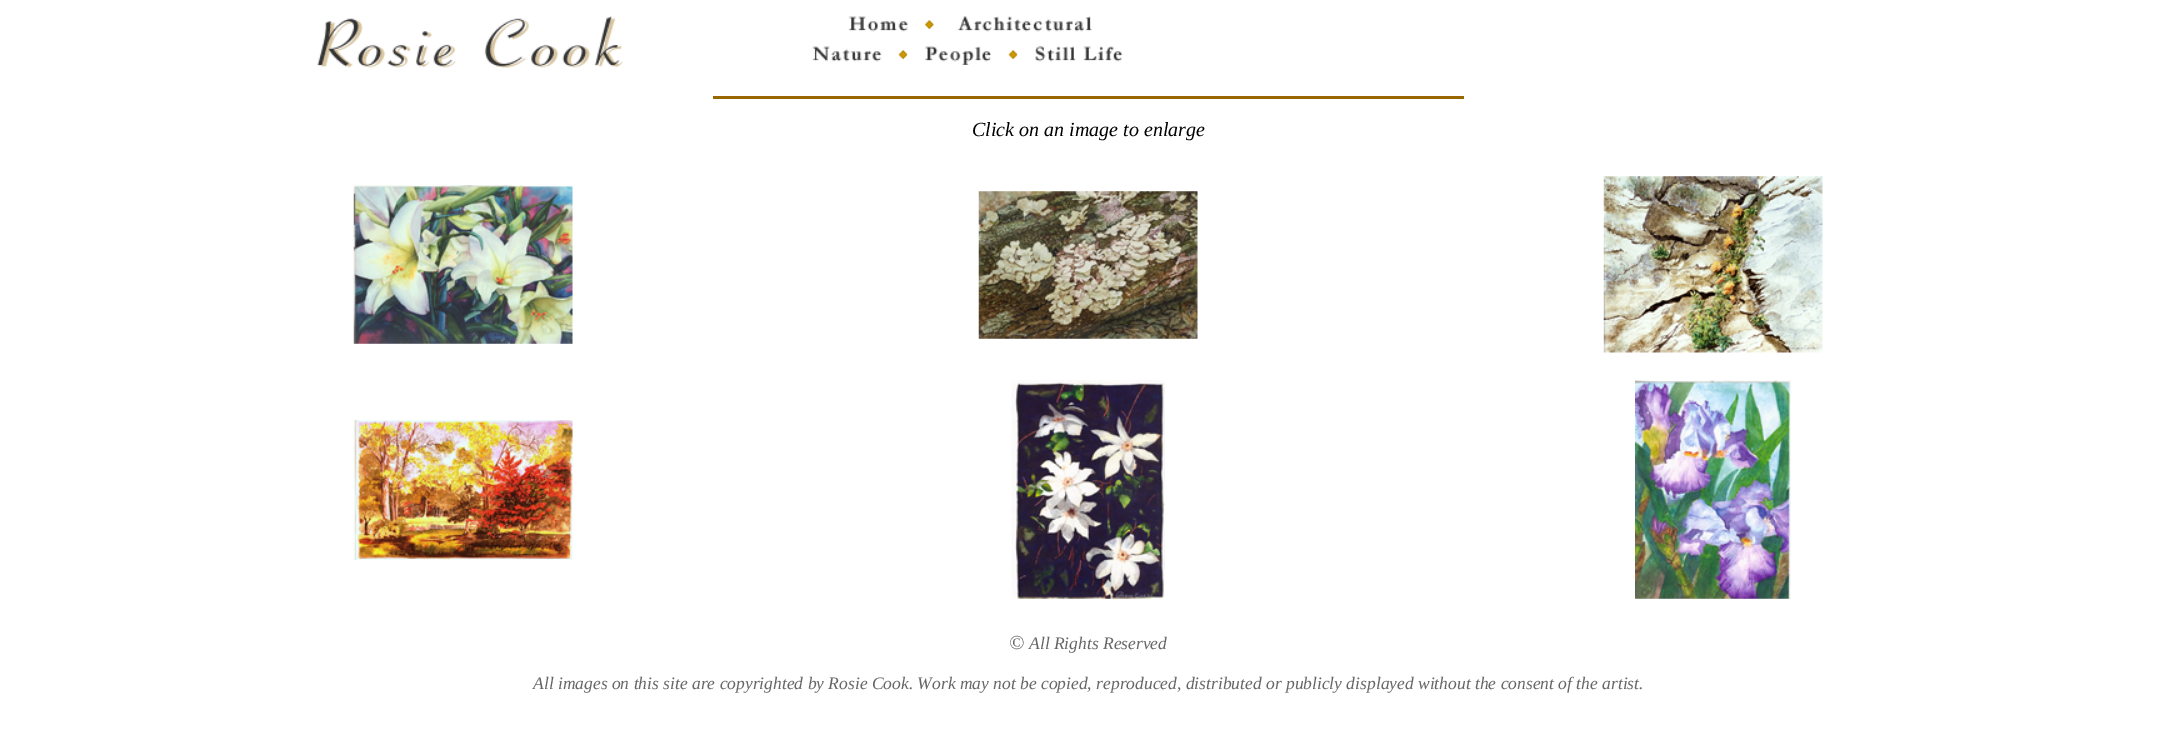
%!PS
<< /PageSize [2176 739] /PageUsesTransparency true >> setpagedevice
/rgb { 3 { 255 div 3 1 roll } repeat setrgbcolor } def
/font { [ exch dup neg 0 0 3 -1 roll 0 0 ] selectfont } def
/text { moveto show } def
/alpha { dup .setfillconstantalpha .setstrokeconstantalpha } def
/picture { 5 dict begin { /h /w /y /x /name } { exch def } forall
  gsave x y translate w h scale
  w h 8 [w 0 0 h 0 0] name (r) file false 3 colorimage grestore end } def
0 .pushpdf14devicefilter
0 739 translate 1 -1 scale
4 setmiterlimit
255 255 255 rgb
0 0 2176 739 rectfill
(img_01.rgb) 317 16 306 52 picture
(img_02.rgb) 848 16 60 16 picture
(img_03.rgb) 925 20 9 10 picture
(img_04.rgb) 957 16 135 16 picture
0.25 alpha
933 23 1 3 rectfill
1 alpha
(img_05.rgb) 812 46 70 16 picture
(img_06.rgb) 898 50 10 10 picture
(img_07.rgb) 925 46 67 19 picture
(img_06.rgb) 1008 50 10 10 picture
(img_08.rgb) 1035 46 88 16 picture
0.5 alpha
907 53 1 3 rectfill
1017 53 1 3 rectfill
1 alpha
153 102 0 rgb
713 96 751 3 rectfill
(img_09.rgb) 353 185 220 159 picture
(img_10.rgb) 978 191 220 148 picture
(img_11.rgb) 1603 176 220 177 picture
(img_12.rgb) 353 420 220 140 picture
(img_13.rgb) 1011 380 154 219 picture
(img_14.rgb) 1635 380 156 219 picture
/LiberationSerif-Italic 20 font
0 0 0 rgb
(Click on an image to enlarge) 972 136 text
102 102 102 rgb
(©) 1009 649 text
/LiberationSerif-Italic 17.5 font
(All Rights Reserved) 1029 649 text
(All images on this site are copyrighted by Rosie Cook. Work may not be copied, reproduced, distributed or publicly displayed without the consent of the artist.) 533 689 text
.poppdf14devicefilter showpage
